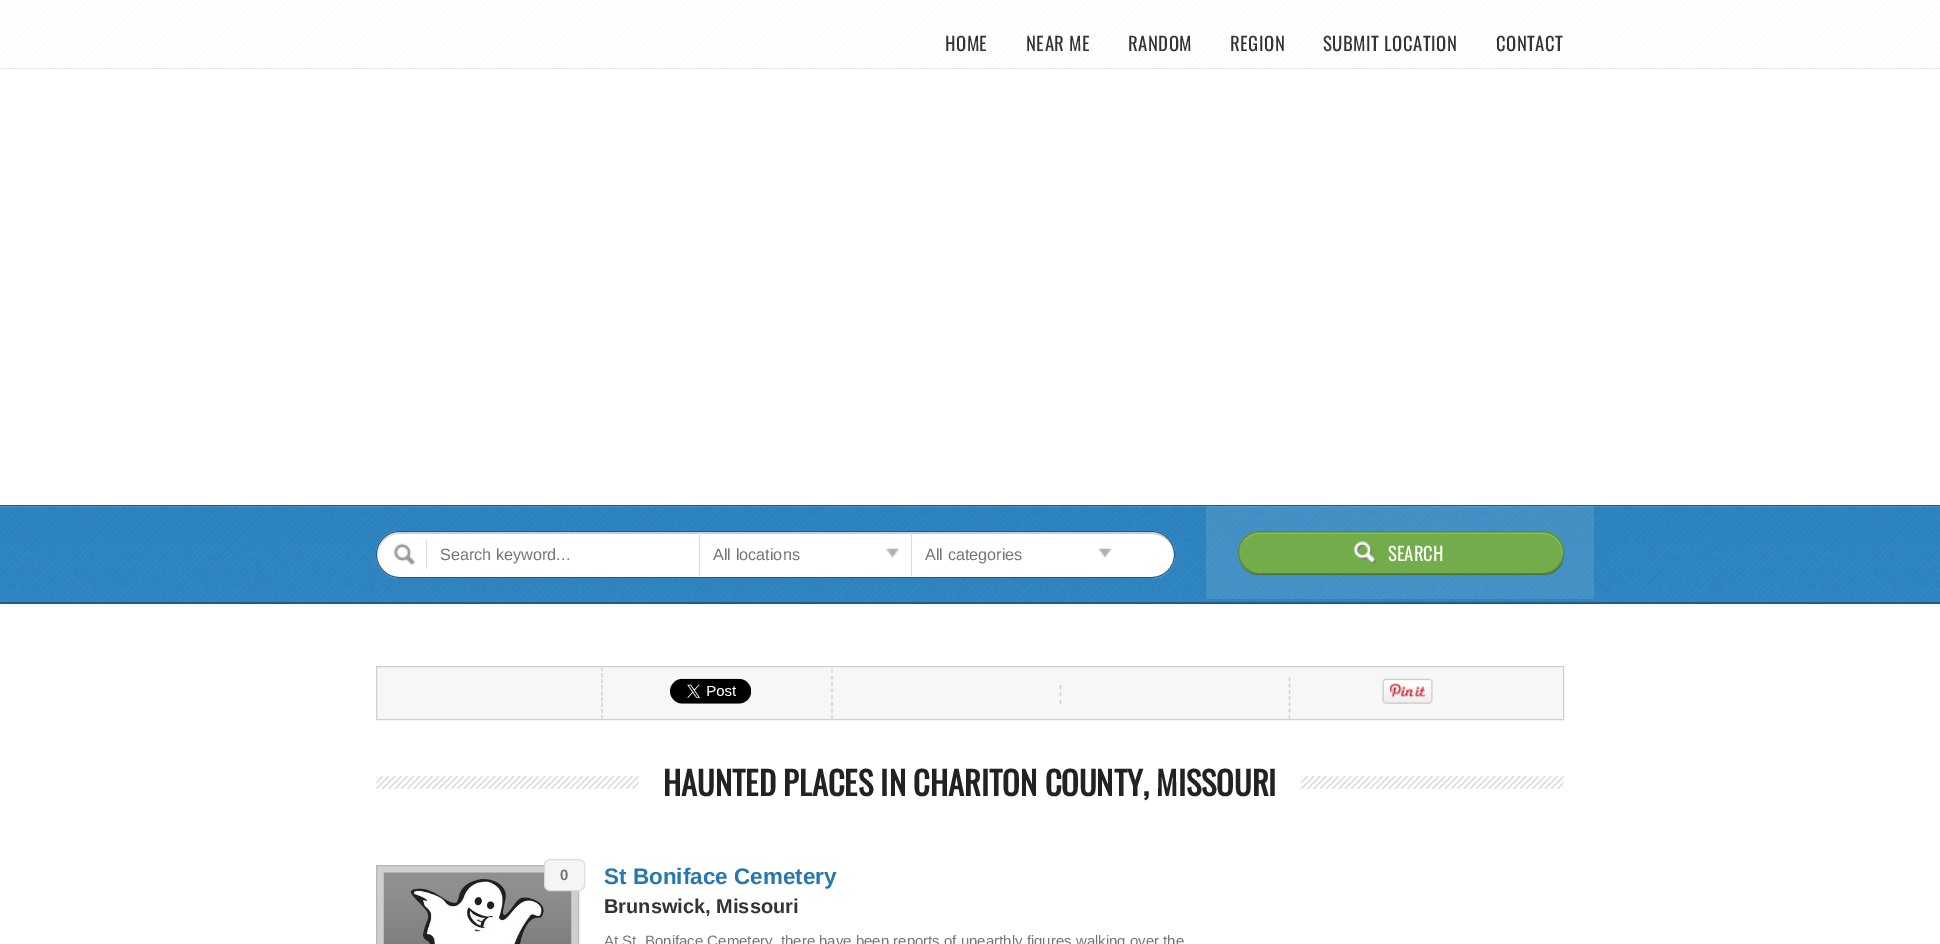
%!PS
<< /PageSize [1940 944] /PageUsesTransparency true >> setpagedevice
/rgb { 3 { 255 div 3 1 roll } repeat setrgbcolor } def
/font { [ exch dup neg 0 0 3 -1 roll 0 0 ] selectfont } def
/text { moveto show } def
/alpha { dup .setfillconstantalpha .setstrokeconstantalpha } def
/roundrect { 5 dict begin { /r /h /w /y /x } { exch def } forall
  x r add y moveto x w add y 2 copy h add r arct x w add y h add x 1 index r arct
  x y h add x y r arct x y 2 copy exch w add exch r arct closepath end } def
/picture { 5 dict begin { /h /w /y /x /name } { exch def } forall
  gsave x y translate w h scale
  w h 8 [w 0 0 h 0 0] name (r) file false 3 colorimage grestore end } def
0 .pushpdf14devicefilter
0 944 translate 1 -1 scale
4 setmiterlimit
255 255 255 rgb
0 0 1940 944 rectfill
230 230 230 rgb
0 68 1940 1 rectfill
(img_01.rgb) 0 0 1940 66 picture
48 142 207 rgb
0 506 1940 97 rectfill
(img_02.rgb) 0 506 1940 97 picture
gsave
0 506 1940 97 rectclip
0.3 alpha
0 0 0 rgb
-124 382 moveto 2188 0 rlineto 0 344 rlineto -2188 0 rlineto closepath 0 481 moveto 1940 0 rlineto 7 0 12 6 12 13 rcurveto 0 96 rlineto 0 7 -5 12 -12 12 rcurveto -1940 0 rlineto -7 0 -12 -5 -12 -12 rcurveto 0 -96 rlineto 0 -7 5 -13 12 -13 rcurveto closepath eofill
grestore
0.1 alpha
255 255 255 rgb
0 506 1940 1 rectfill
1 alpha
10 92 147 rgb
0 505 1940 1 rectfill
30 91 133 rgb
0 603 1940 1 rectfill
56 146 209 rgb
382 570 moveto 4 5 11 9 18 9 rcurveto 752 0 rlineto 10 0 18 -6 21 -15 rcurveto -4 8 -12 14 -21 14 rcurveto -753 0 rlineto -7 0 -13 -4 -17 -8 rcurveto closepath fill
255 255 255 rgb
376 531 799 47 23.5 roundrect fill
204 204 204 rgb
399 534 moveto 753 0 rlineto 12 0 22 10 22 21 rcurveto 0 -12 -9 -22 -22 -22 rcurveto -752 0 rlineto -13 0 -22 10 -22 22 rcurveto 0 -11 9 -21 21 -21 rcurveto closepath fill
30 91 133 rgb
376.5 531.5 798 46 23 roundrect stroke
220 220 220 rgb
426 540 1 29 rectfill
(img_03.rgb) 393 543 22 22 picture
(img_04.rgb) 886 548 13 10 picture
699 533 1 43 rectfill
(img_05.rgb) 1098 548 14 10 picture
911 533 1 43 rectfill
0.1 alpha
255 255 255 rgb
1206 506 388 93 rectfill
1 alpha
70 105 46 rgb
1239 560 moveto 3 9 11 15 20 15 rcurveto 284 0 rlineto 12 0 21 -9 21 -21 rcurveto 0 -4 rlineto 0 2 rlineto 0 12 -10 22 -22 22 rcurveto -283 0 rlineto -9 0 -17 -6 -20 -14 rcurveto closepath fill
115 172 75 rgb
1238 531 326 43 21.5 roundrect fill
(img_06.rgb) 1353 541 24 23 picture
136 188 100 rgb
1259 534 moveto 283 0 rlineto 12 0 20 9 20 20 rcurveto 0 4 -1 8 -3 11 rcurveto 2 -3 4 -7 4 -12 rcurveto 0 -11 -9 -20 -20 -20 rcurveto -284 0 rlineto -11 0 -20 9 -20 20 rcurveto 0 1 rlineto 0 -11 9 -20 20 -20 rcurveto closepath fill
91 136 60 rgb
1238.5 531.5 325 42 21 roundrect stroke
247 247 247 rgb
376.5 666.5 moveto 1187 0 rlineto 0 53 rlineto -1187 0 rlineto closepath gsave fill grestore
207 207 207 rgb
stroke
1.2 setlinewidth
[3.75 2.19] 0 setdash
602 667.5 moveto 0 51.5 rlineto stroke
[3.75 2.86] 0 setdash
832 669 moveto 0 50 rlineto stroke
(img_07.rgb) 670 678 82 26 picture
[] 0 setdash
1060.5 685 moveto 0 4 rlineto 1060.5 692.5 moveto 0 3.5 rlineto 1060.5 700 moveto 0 4 rlineto stroke
[3.75 2.5] 0 setdash
1289.5 677.5 moveto 0 41.5 rlineto stroke
(img_08.rgb) 1382 678 51 26 picture
(img_09.rgb) 376 776 1188 13 picture
255 255 255 rgb
639 776 662 13 rectfill
207 207 207 rgb
376.5 865.5 moveto 202 0 rlineto 0 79 rlineto -202 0 rlineto closepath gsave fill grestore
182 182 182 rgb
1 setlinewidth
[] 0 setdash
stroke
(img_10.rgb) 383 872 189 72 picture
245 245 245 rgb
544.5 859.5 40 31 5.5 roundrect gsave fill grestore
220 220 220 rgb
stroke
/Oswald-Regular 18.75 font
51 51 51 rgb
945 51 moveto 0.5 0 (HOME) ashow
1026 51 moveto 0.5 0 (NEAR ME) ashow
1128 51 moveto 0.5 0 (RANDOM) ashow
1230 51 moveto 0.5 0 (REGION) ashow
1323 51 moveto 0.5 0 (SUBMIT LOCATION) ashow
1496 51 moveto 0.5 0 (CONTACT) ashow
/LiberationSans-Regular 16.25 font
117 117 117 rgb
(Search keyword...) 440 560 text
(All locations) 713 560 text
(All categories) 925 560 text
/Oswald-Regular 18.75 font
255 255 255 rgb
(SEARCH) 1388 561 text
/Oswald-Bold 32.5 font
34 34 34 rgb
(HAUNTED PLACES IN CHARITON COUNTY, MISSOURI) 663 796 text
/LiberationSans-Bold 15 font
117 117 117 rgb
(0) 560 880 text
/LiberationSans-Bold 22.5 font
40 119 174 rgb
(St Boniface Cemetery) 604 884 text
/LiberationSans-Bold 20 font
51 51 51 rgb
(Brunswick, Missouri) 604 913 text
/LiberationSans-Regular 15 font
117 117 117 rgb
(At St. Boniface Cemetery, there have been reports of unearthly figures walking over the) 604 946 text
.poppdf14devicefilter showpage
